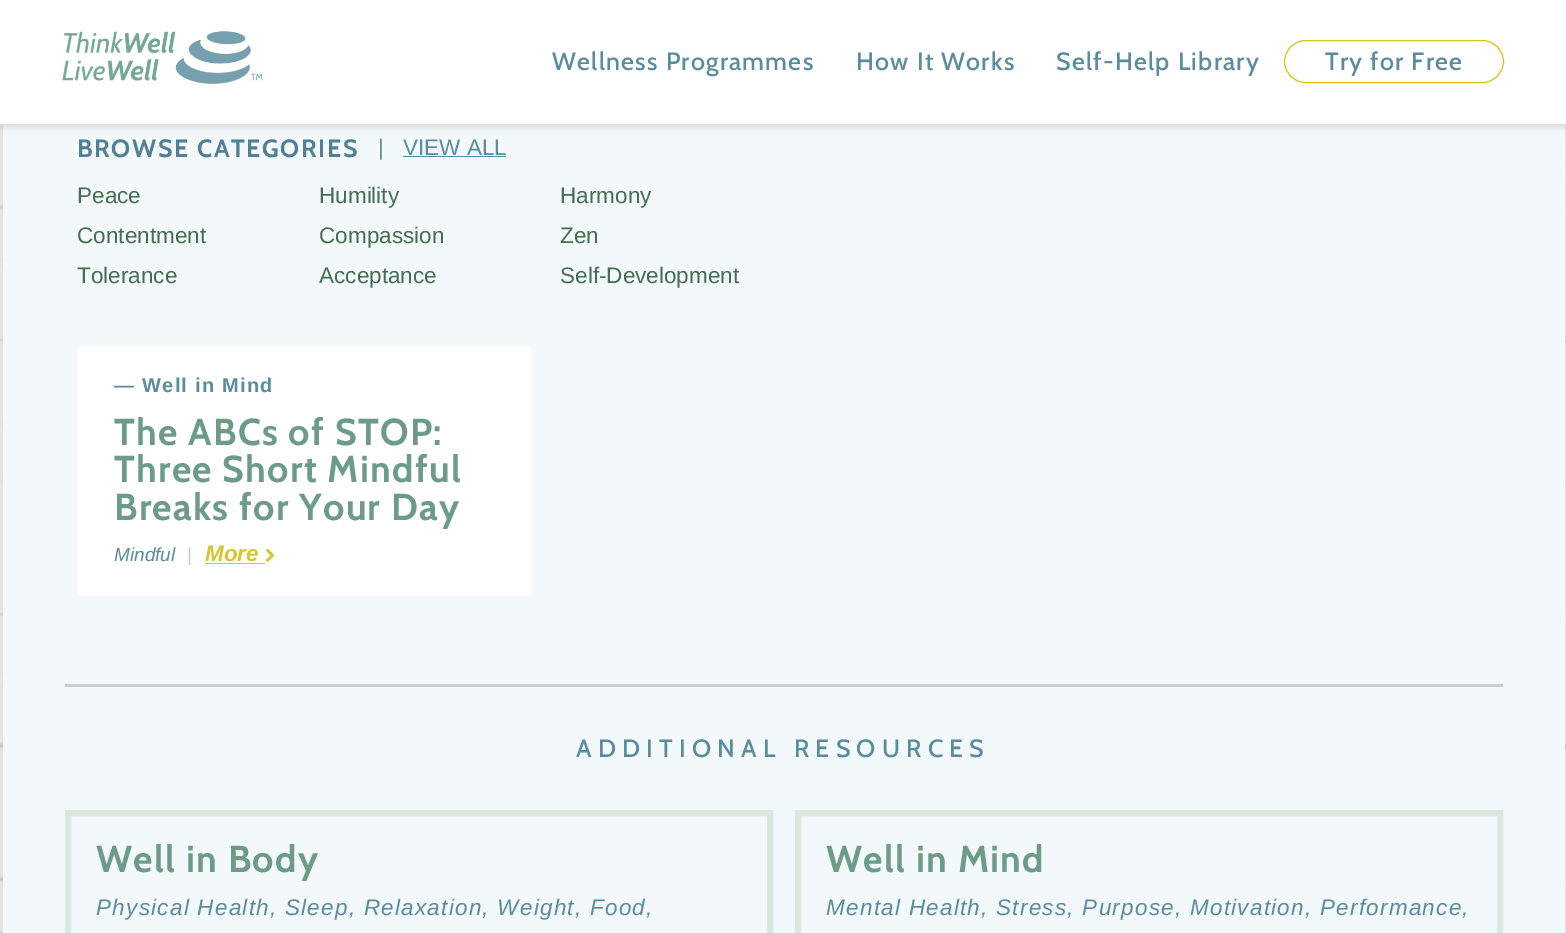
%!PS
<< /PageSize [1566 933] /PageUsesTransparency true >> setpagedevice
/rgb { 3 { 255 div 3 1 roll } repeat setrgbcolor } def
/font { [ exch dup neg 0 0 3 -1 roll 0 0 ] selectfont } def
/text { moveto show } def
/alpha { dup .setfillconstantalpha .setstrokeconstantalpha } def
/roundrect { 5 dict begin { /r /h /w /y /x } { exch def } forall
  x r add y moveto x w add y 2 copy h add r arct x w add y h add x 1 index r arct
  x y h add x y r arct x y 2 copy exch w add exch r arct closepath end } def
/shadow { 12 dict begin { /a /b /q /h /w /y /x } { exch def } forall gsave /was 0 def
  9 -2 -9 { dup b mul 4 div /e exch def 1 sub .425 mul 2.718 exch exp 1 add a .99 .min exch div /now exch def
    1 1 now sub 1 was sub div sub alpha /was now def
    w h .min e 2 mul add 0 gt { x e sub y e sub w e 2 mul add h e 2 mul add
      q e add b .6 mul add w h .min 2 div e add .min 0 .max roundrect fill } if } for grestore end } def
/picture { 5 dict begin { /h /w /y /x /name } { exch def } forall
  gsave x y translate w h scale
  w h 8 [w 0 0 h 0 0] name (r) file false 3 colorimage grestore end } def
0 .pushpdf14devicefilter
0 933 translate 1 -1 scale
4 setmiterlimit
255 255 255 rgb
0 0 1566 933 rectfill
(img_01.rgb) 0 124 1566 809 picture
0 0 0 rgb
-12 -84 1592 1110 0 31 0.15 shadow
243 248 250 rgb
3 124 1562 809 rectfill
(img_04.rgb) 1565 137 1 44 picture
0 0 0 rgb
0 4 1566 124 0 3 0.1 shadow
255 255 255 rgb
0 0 1566 124 rectfill
(img_02.rgb) 62 31 201 53 picture
218 196 18 rgb
1284.5 40.5 219 42 21 roundrect stroke
89 140 159 rgb
403 156 103 1 rectfill
255 255 255 rgb
78 346 453 250 5 roundrect fill
215 197 49 rgb
205 563 60 1 rectfill
(img_03.rgb) 265 548 10 15 picture
204 204 204 rgb
65 684 1438 3 rectfill
219 231 222 rgb
6 setlinewidth
68 813 702 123 rectstroke
798 813 702 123 rectstroke
/Cabin-Medium 25 font
89 140 159 rgb
552 70 moveto 1.25 0 (Wellness Programmes) ashow
856 70 moveto 1.25 0 (How It Works) ashow
1056 70 moveto 1.25 0 (Self-Help Library) ashow
1325 70 moveto 1.25 0 (Try for Free) ashow
/Cabin-Bold 25 font
81 128 149 rgb
77 157 moveto 1.6 0 (BROWSE CATEGORIES) ashow
/LiberationSans-Regular 22.5 font
89 140 159 rgb
(|) 378 155 text
(VIEW ALL) 403 155 text
70 110 81 rgb
(Peace) 77 203 text
(Contentment) 77 243 text
(Tolerance) 77 283 text
(Humility) 319 203 text
(Compassion) 319 243 text
(Acceptance) 319 283 text
(Harmony) 560 203 text
(Zen) 560 243 text
(Self-Development) 560 283 text
/LiberationSans-Bold 20 font
89 140 159 rgb
114 392 moveto 1.25 0 (— Well in Mind) ashow
/Cabin-Bold 37.5 font
108 155 135 rgb
114 445 moveto 1.25 0 (The ABCs of STOP:) ashow
114 482 moveto 1.25 0 (Three Short Mindful) ashow
114 520 moveto 1.25 0 (Breaks for Your Day) ashow
/LiberationSans-Italic 19 font
89 140 159 rgb
(Mindful) 114 561 text
/LiberationSans-Regular 19 font
204 204 204 rgb
(|) 187 561 text
/LiberationSans-BoldItalic 22.5 font
215 197 49 rgb
(More) 205 561 text
/Cabin-Medium 25 font
89 140 159 rgb
576 757 moveto 6.25 0 (ADDITIONAL RESOURCES) ashow
/Cabin-Bold 37.5 font
108 155 135 rgb
96 872 moveto 1.25 0 (Well in Body) ashow
/LiberationSans-Italic 22.5 font
89 140 159 rgb
96 915 moveto 1.25 0 (Physical Health, Sleep, Relaxation, Weight, Food,) ashow
/Cabin-Bold 37.5 font
108 155 135 rgb
826 872 moveto 1.25 0 (Well in Mind) ashow
/LiberationSans-Italic 22.5 font
89 140 159 rgb
826 915 moveto 1.25 0 (Mental Health, Stress, Purpose, Motivation, Performance,) ashow
.poppdf14devicefilter showpage
